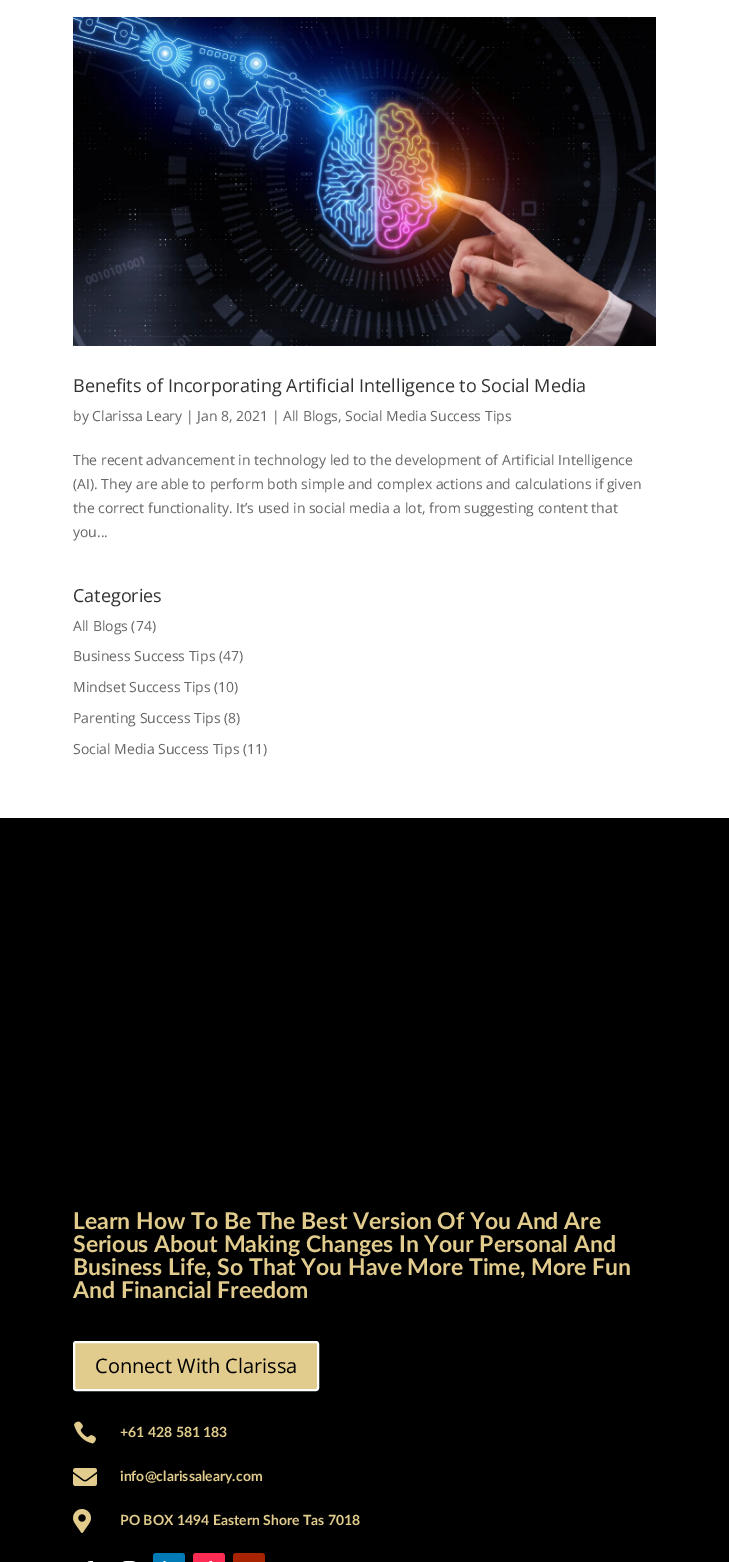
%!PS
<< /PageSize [729 1562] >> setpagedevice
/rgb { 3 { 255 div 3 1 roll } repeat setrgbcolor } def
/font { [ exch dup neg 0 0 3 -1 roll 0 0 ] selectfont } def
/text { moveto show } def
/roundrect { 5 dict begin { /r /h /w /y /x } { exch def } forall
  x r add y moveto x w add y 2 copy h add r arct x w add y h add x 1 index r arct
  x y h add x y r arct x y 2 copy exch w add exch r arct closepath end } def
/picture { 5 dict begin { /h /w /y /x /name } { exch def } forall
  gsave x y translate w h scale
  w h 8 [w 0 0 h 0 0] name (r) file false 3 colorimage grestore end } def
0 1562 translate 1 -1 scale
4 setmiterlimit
255 255 255 rgb
0 0 729 1562 rectfill
(img_01.rgb) 73 17 583 329 picture
0 0 0 rgb
0 818 729 744 rectfill
225 203 141 rgb
74 1342 244 48 2 roundrect gsave fill grestore
255 255 255 rgb
2 setlinewidth
stroke
(img_02.rgb) 74 1421 22 23 picture
(img_03.rgb) 73 1468 24 18 picture
(img_04.rgb) 73 1509 18 24 picture
(img_05.rgb) 87 1561 6 1 picture
(img_06.rgb) 122 1561 14 1 picture
0 123 182 rgb
153 1553 32 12 3 roundrect fill
(img_07.rgb) 163 1561 3 1 picture
254 44 85 rgb
193 1553 32 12 3 roundrect fill
(img_08.rgb) 209 1561 4 1 picture
168 36 0 rgb
233 1553 32 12 3 roundrect fill
/OpenSans-Regular 18 font
51 51 51 rgb
(Benefits of Incorporating Artificial Intelligence to Social Media) 73 392 text
/OpenSans-Regular 14 font
102 102 102 rgb
(by Clarissa Leary | Jan 8, 2021 | All Blogs, Social Media Success Tips) 73 421 text
(The recent advancement in technology led to the development of Artificial Intelligence) 73 465 text
(\(AI\). They are able to perform both simple and complex actions and calculations if given) 73 489 text
(the correct functionality. It’s used in social media a lot, from suggesting content that) 73 513 text
(you...) 73 537 text
/OpenSans-Regular 18 font
51 51 51 rgb
(Categories) 73 602 text
/OpenSans-Regular 14 font
102 102 102 rgb
(All Blogs \(74\)) 73 631 text
(Business Success Tips \(47\)) 73 661 text
(Mindset Success Tips \(10\)) 73 692 text
(Parenting Success Tips \(8\)) 73 723 text
(Social Media Success Tips \(11\)) 73 754 text
/Lato-Bold 23 font
225 203 141 rgb
(Learn How To Be The Best Version Of You And Are) 73 1229 text
(Serious About Making Changes In Your Personal And) 73 1252 text
(Business Life, So That You Have More Time, More Fun) 73 1275 text
(And Financial Freedom) 73 1298 text
/OpenSans-Regular 20 font
0 0 0 rgb
(Connect With Clarissa) 95 1373 text
/Lato-Bold 14 font
225 203 141 rgb
(+61 428 581 183) 120 1437 text
(info@clarissaleary.com) 120 1481 text
(PO BOX 1494 Eastern Shore Tas 7018) 120 1525 text
showpage
